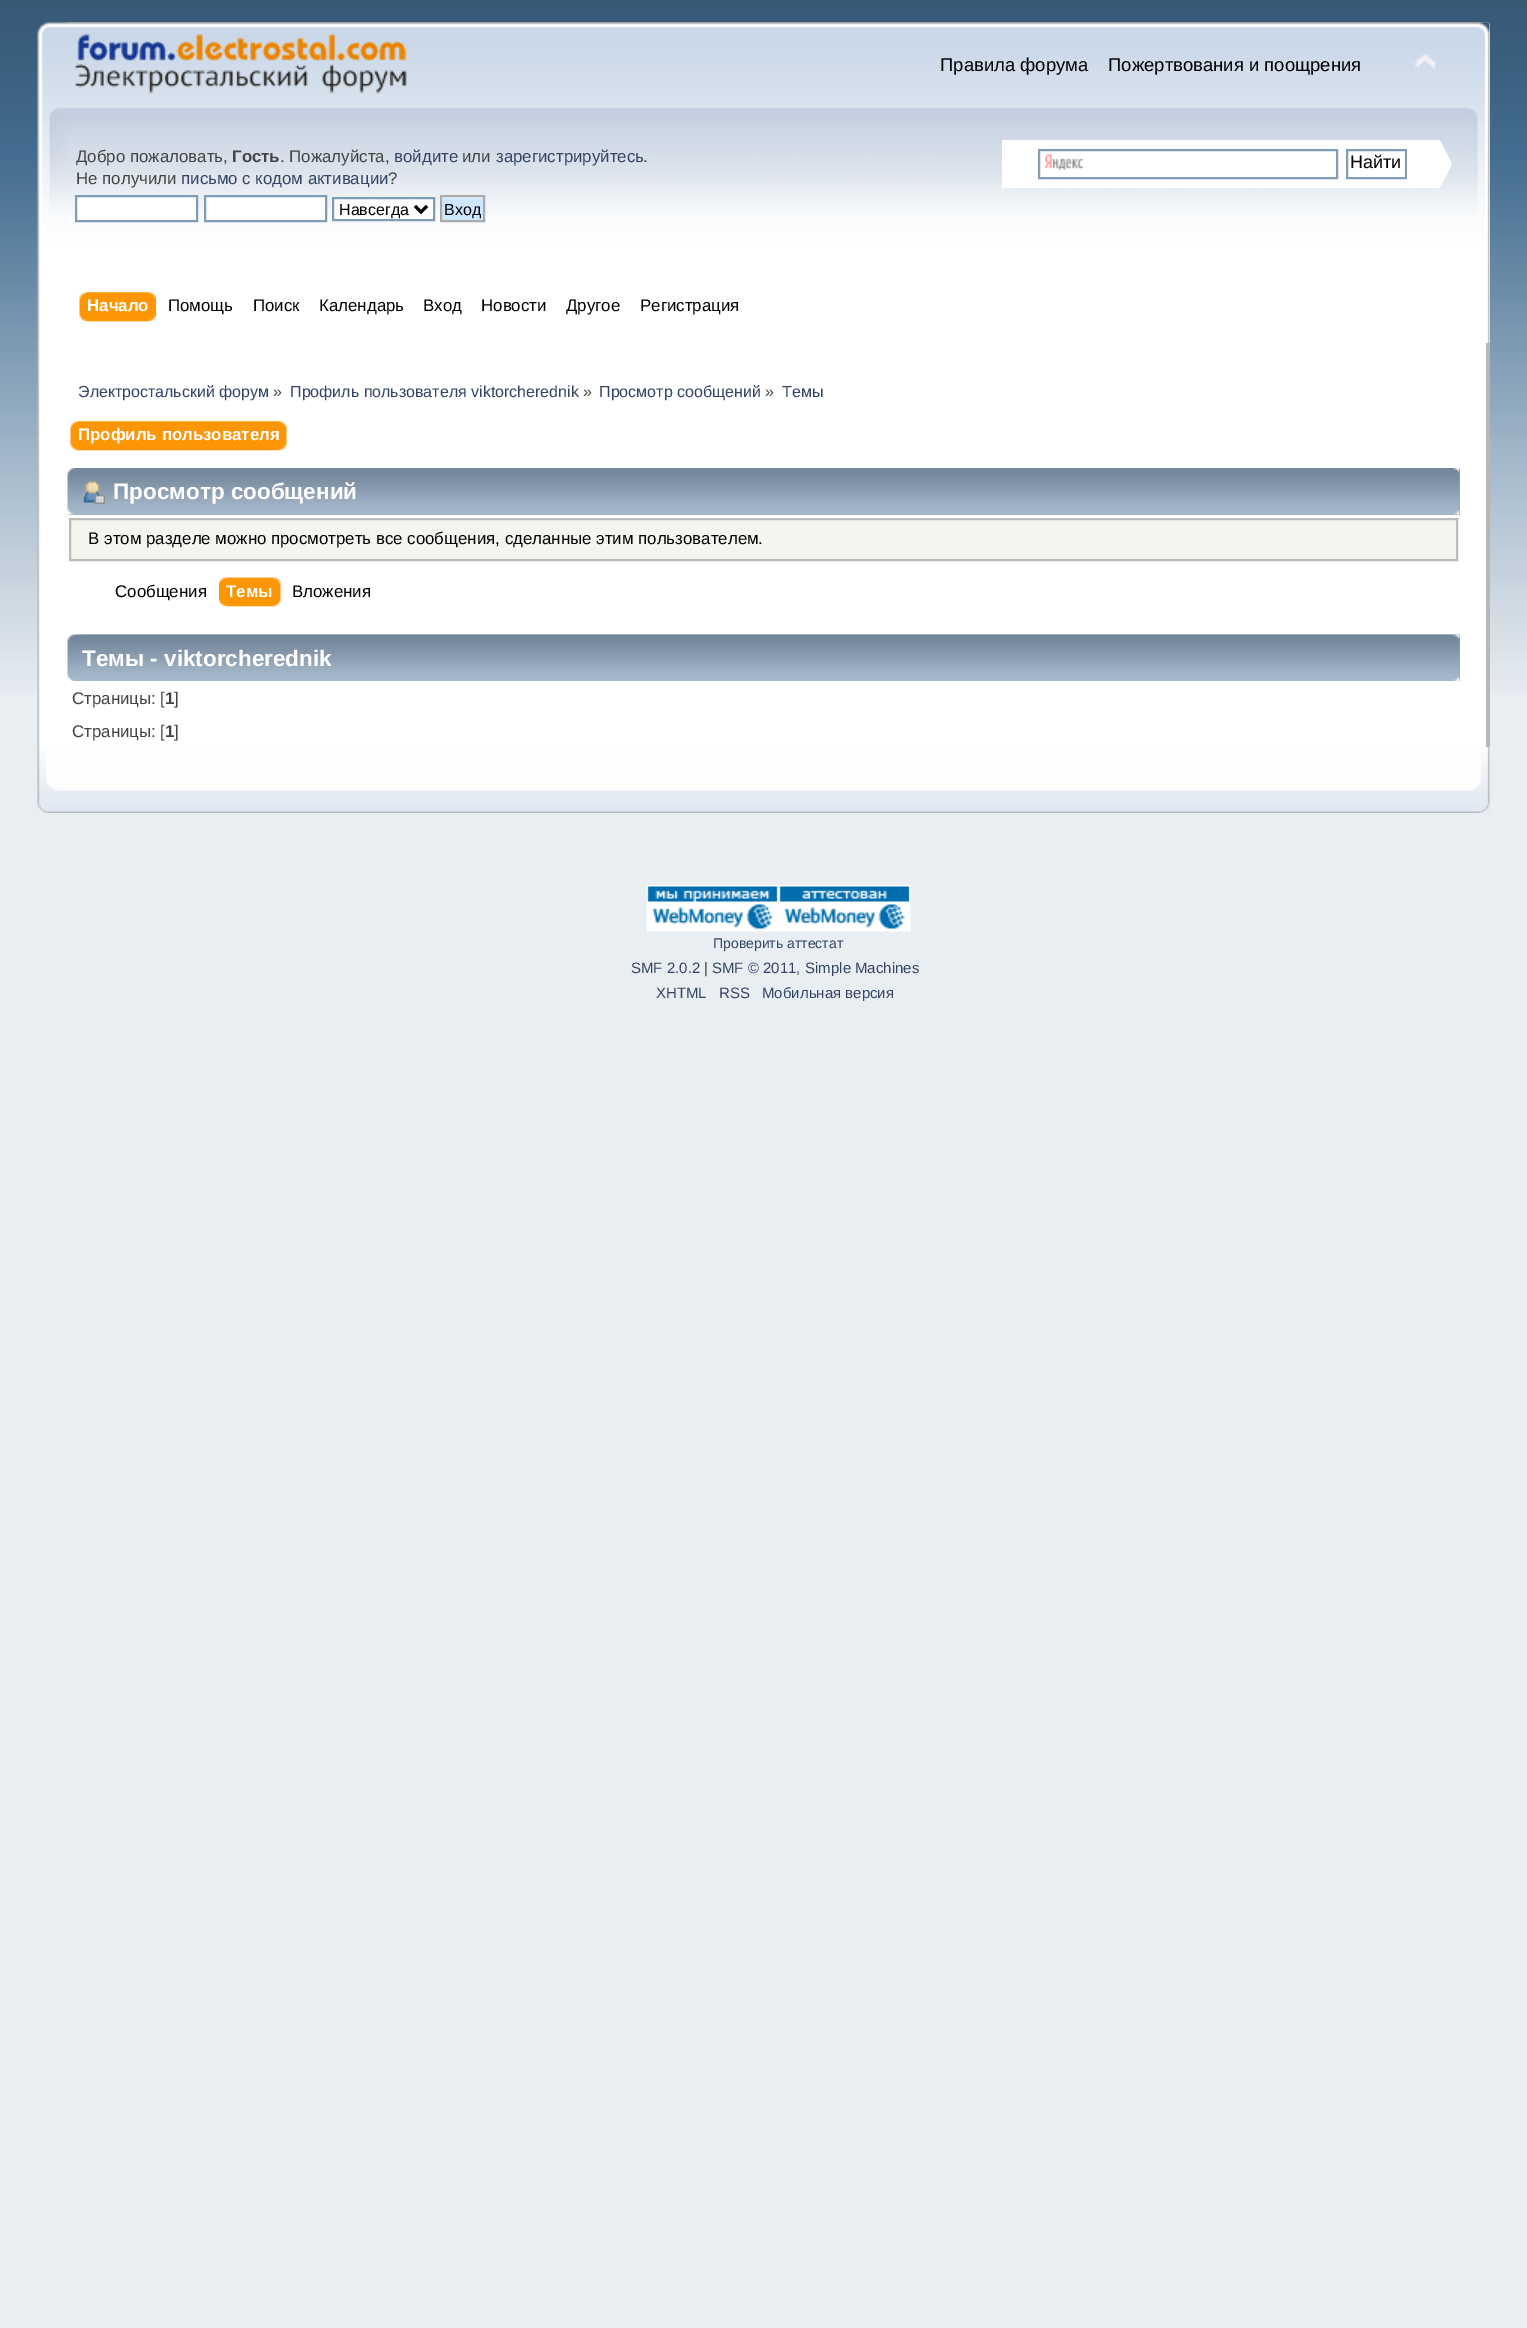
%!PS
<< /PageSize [1527 2328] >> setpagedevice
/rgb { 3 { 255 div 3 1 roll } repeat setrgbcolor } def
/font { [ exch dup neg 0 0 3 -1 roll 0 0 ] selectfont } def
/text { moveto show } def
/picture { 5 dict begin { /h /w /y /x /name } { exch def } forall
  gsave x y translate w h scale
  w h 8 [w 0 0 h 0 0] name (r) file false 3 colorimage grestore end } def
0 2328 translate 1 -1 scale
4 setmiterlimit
233 238 242 rgb
0 0 1527 2328 rectfill
(img_01.rgb) 0 0 1527 693 picture
(img_02.rgb) 37 22 1453 322 picture
(img_03.rgb) 67 22 1423 322 picture
(img_04.rgb) 74 34 333 60 picture
(img_05.rgb) 1414 53 23 17 picture
255 255 255 rgb
76 196 moveto 121 0 rlineto 0 25 rlineto -121 0 rlineto closepath gsave fill grestore
127 157 185 rgb
2 setlinewidth
stroke
255 255 255 rgb
205 196 moveto 121 0 rlineto 0 25 rlineto -121 0 rlineto closepath gsave fill grestore
127 157 185 rgb
stroke
255 255 255 rgb
333 198 moveto 101 0 rlineto 0 22 rlineto -101 0 rlineto closepath gsave fill grestore
127 157 185 rgb
stroke
0 0 0 rgb
3 setlinewidth
415 206 moveto 6 6 rlineto 6 -6 rlineto stroke
(img_06.rgb) 442 197 41 23 picture
170 170 170 rgb
2 setlinewidth
441 196 43 25 rectstroke
255 255 255 rgb
1002 140 405 48 rectfill
(img_07.rgb) 1044 154 39 17 picture
127 157 185 rgb
1039 150 298 28 rectstroke
1347 150 59 28 rectstroke
gsave
1407 140 45 48 rectclip
255 255 255 rgb
1407 252 moveto 0 -177 rlineto 45 89 rlineto closepath fill
grestore
(img_08.rgb) 87 292 69 30 picture
(img_09.rgb) 79 292 70 30 picture
(img_10.rgb) 37 343 1449 404 picture
183 183 183 rgb
1486 343 4 404 rectfill
(img_11.rgb) 78 421 209 30 picture
(img_12.rgb) 70 421 209 30 picture
153 171 191 rgb
68 468 1392 47 rectfill
(img_13.rgb) 67 468 1393 47 picture
(img_14.rgb) 1453 468 7 47 picture
(img_15.rgb) 83 481 22 23 picture
245 245 240 rgb
70 519 moveto 1387 0 rlineto 0 41 rlineto -1387 0 rlineto closepath gsave fill grestore
187 187 187 rgb
stroke
(img_16.rgb) 226 577 55 30 picture
(img_17.rgb) 219 577 54 30 picture
153 171 191 rgb
1459 635 1 46 rectfill
(img_18.rgb) 67 634 1393 47 picture
(img_19.rgb) 81 634 1379 47 picture
(img_20.rgb) 37 747 1453 66 picture
(img_21.rgb) 1471 747 19 66 picture
(img_22.rgb) 646 885 133 47 picture
(img_23.rgb) 778 885 133 47 picture
/LiberationSans-Regular 18.5 font
0 0 0 rgb
(Правила форума) 940 71 text
(Пожертвования и поощрения) 1108 71 text
/LiberationSans-Regular 16.85 font
68 68 68 rgb
(Добро пожаловать,) 76 162 text
/LiberationSans-Bold 16.85 font
(Гость) 232 162 text
/LiberationSans-Regular 16.85 font
(. Пожалуйста,) 280 162 text
51 68 102 rgb
(войдите) 394 162 text
68 68 68 rgb
(или) 462 162 text
51 68 102 rgb
(зарегистрируйтесь) 496 162 text
68 68 68 rgb
(.) 643 162 text
(Не получили) 76 184 text
51 68 102 rgb
(письмо с кодом активации) 181 184 text
68 68 68 rgb
(?) 388 184 text
/LiberationSans-Regular 16 font
0 0 0 rgb
(Навсегда) 339 215 text
(Вход) 444 215 text
/LiberationSans-Regular 18 font
(Найти) 1350 168 text
/LiberationSans-Bold 16.85 font
255 255 255 rgb
(Начало) 87 311 text
/LiberationSans-Regular 16.85 font
0 0 0 rgb
(Помощь) 168 311 text
(Поиск) 253 311 text
(Календарь) 319 311 text
(Вход) 423 311 text
(Новости) 481 311 text
(Другое) 566 311 text
(Регистрация) 640 311 text
/LiberationSans-Regular 16 font
51 68 102 rgb
(Электростальский форум) 78 397 text
68 68 68 rgb
(») 273 397 text
51 68 102 rgb
(Профиль пользователя viktorcherednik) 290 397 text
68 68 68 rgb
(») 583 397 text
51 68 102 rgb
(Просмотр сообщений) 599 397 text
68 68 68 rgb
(») 765 397 text
51 68 102 rgb
(Темы) 782 397 text
/LiberationSans-Bold 16.85 font
255 255 255 rgb
(Профиль пользователя) 78 440 text
/LiberationSans-Bold 22.5 font
(Просмотр сообщений) 113 499 text
/LiberationSans-Regular 16.85 font
0 0 0 rgb
(В этом разделе можно просмотреть все сообщения, сделанные этим пользователем.) 88 544 text
(Сообщения) 115 597 text
/LiberationSans-Bold 16.85 font
255 255 255 rgb
(Темы) 226 597 text
/LiberationSans-Regular 16.85 font
0 0 0 rgb
(Вложения) 292 597 text
/LiberationSans-Bold 22.5 font
255 255 255 rgb
(Темы - viktorcherednik) 82 666 text
/LiberationSans-Regular 16.85 font
68 68 68 rgb
(Страницы: [) 72 704 text
/LiberationSans-Bold 16.85 font
(1) 165 704 text
/LiberationSans-Regular 16.85 font
(]) 174 704 text
(Страницы: [) 72 737 text
/LiberationSans-Bold 16.85 font
(1) 165 737 text
/LiberationSans-Regular 16.85 font
(]) 174 737 text
/LiberationSans-Regular 14 font
51 68 102 rgb
(Проверить аттестат) 713 948 text
/LiberationSans-Regular 15 font
(SMF 2.0.2) 631 973 text
68 68 68 rgb
(|) 704 973 text
51 68 102 rgb
(SMF © 2011) 712 973 text
68 68 68 rgb
(,) 796 973 text
51 68 102 rgb
(Simple Machines) 805 973 text
(XHTML) 656 998 text
(RSS) 719 998 text
(Мобильная версия) 762 998 text
showpage
